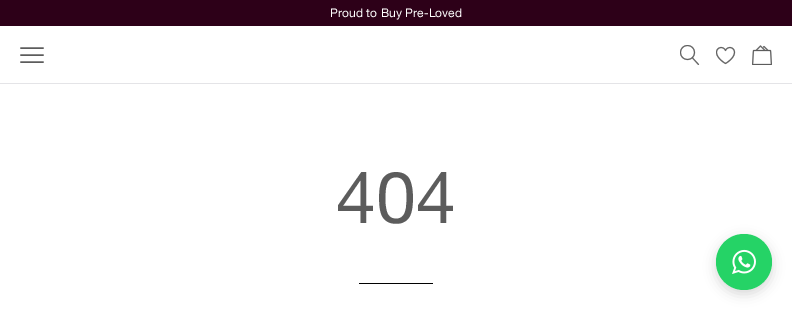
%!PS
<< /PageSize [792 310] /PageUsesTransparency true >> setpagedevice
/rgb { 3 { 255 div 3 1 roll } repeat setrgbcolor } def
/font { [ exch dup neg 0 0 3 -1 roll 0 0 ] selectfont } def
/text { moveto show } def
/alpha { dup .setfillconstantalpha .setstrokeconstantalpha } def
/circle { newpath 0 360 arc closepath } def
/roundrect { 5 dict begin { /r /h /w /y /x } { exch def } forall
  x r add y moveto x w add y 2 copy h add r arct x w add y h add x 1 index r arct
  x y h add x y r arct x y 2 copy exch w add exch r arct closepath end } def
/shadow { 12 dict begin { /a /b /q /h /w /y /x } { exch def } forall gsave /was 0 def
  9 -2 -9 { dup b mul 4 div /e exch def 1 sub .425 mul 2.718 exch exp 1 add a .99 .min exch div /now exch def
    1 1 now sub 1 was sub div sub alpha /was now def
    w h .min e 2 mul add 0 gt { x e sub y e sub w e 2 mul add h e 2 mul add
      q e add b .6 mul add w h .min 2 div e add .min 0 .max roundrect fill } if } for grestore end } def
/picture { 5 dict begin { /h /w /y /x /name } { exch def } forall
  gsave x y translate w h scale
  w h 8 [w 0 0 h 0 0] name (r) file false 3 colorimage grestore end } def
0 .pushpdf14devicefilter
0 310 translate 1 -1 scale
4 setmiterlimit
255 255 255 rgb
0 0 792 310 rectfill
228 228 231 rgb
0 83 792 1 rectfill
45 0 24 rgb
0 0 792 26 rectfill
92 92 92 rgb
1.5 setlinewidth
2 setlinecap
21 62 moveto 22 0 rlineto 21 55 moveto 22 0 rlineto 21 48 moveto 22 0 rlineto stroke
(img_01.rgb) 680 45 20 20 picture
(img_02.rgb) 716 46 20 19 picture
(img_03.rgb) 752 45 20 20 picture
1 1 1 rgb
359 283 74 1 rectfill
0 0 0 rgb
716 238 56 56 28 6 0.15 shadow
37 211 102 rgb
744 262 28 circle fill
(img_04.rgb) 732 249 24 25 picture
/HelveticaNeue-Regular 12 font
255 255 255 rgb
330 17 moveto 0.1 0 (Proud to Buy Pre-Loved) ashow
/HelveticaNeue-Regular 72 font
92 92 92 rgb
(404) 336 223 text
.poppdf14devicefilter showpage
